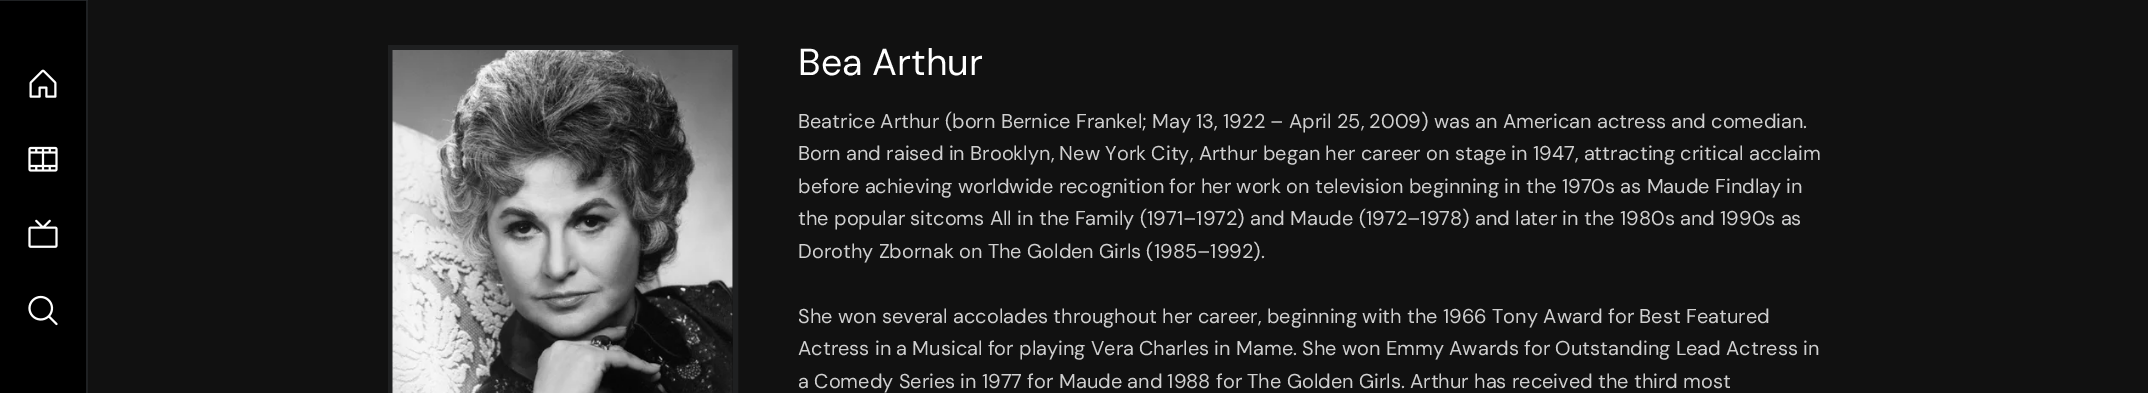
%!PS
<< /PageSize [2148 393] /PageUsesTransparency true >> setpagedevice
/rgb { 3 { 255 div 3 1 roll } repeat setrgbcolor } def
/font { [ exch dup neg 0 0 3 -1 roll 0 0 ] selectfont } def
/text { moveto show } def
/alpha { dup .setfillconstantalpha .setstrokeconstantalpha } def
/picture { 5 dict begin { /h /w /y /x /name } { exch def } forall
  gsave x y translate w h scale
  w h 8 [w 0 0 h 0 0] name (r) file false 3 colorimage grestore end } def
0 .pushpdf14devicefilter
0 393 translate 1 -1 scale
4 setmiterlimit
17 17 17 rgb
0 0 2148 393 rectfill
0 0 0 rgb
0 0 88 393 rectfill
31 33 35 rgb
0 0 moveto 88 0 rlineto -2 1 rlineto -86 0 rlineto closepath fill
0.2 alpha
156 163 175 rgb
88 0 moveto 0 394 rlineto -2 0 rlineto 0 -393 rlineto closepath fill
1 alpha
(img_01.rgb) 29 69 28 29 picture
(img_02.rgb) 28 146 30 26 picture
(img_03.rgb) 28 219 30 29 picture
(img_04.rgb) 28 295 30 31 picture
31 32 33 rgb
5 setlinewidth
390.5 47.5 345 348 rectstroke
(img_05.rgb) 392 50 341 343 picture
/DMSans-Regular 37.5 font
255 255 255 rgb
(Bea Arthur) 798 75 text
/DMSans-Regular 20 font
207 207 207 rgb
(Beatrice Arthur \(born Bernice Frankel; May 13, 1922 – April 25, 2009\) was an American actress and comedian.) 798 128 text
(Born and raised in Brooklyn, New York City, Arthur began her career on stage in 1947, attracting critical acclaim) 798 160 text
(before achieving worldwide recognition for her work on television beginning in the 1970s as Maude Findlay in) 798 193 text
(the popular sitcoms All in the Family \(1971–1972\) and Maude \(1972–1978\) and later in the 1980s and 1990s as) 798 225 text
(Dorothy Zbornak on The Golden Girls \(1985–1992\).) 798 258 text
(She won several accolades throughout her career, beginning with the 1966 Tony Award for Best Featured) 798 323 text
(Actress in a Musical for playing Vera Charles in Mame. She won Emmy Awards for Outstanding Lead Actress in) 798 355 text
(a Comedy Series in 1977 for Maude and 1988 for The Golden Girls. Arthur has received the third most) 798 388 text
.poppdf14devicefilter showpage
